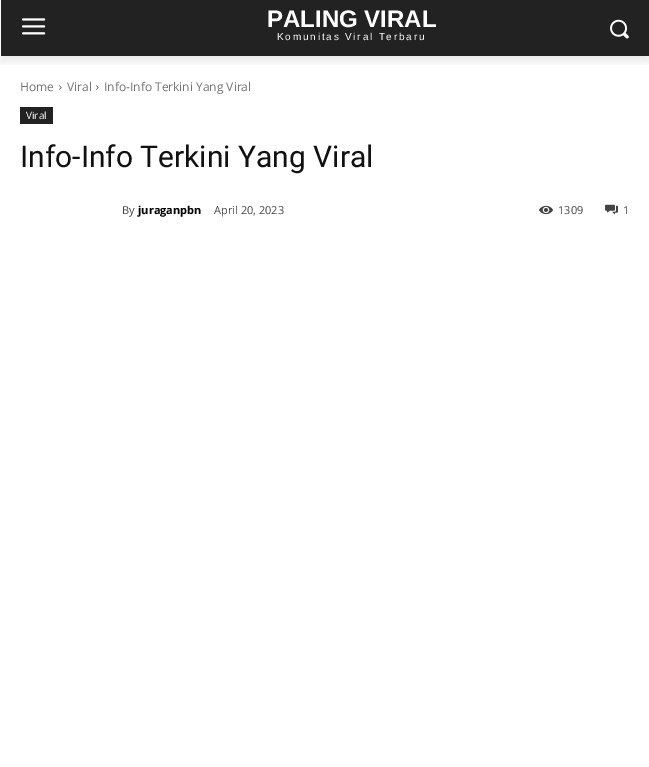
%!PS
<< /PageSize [649 767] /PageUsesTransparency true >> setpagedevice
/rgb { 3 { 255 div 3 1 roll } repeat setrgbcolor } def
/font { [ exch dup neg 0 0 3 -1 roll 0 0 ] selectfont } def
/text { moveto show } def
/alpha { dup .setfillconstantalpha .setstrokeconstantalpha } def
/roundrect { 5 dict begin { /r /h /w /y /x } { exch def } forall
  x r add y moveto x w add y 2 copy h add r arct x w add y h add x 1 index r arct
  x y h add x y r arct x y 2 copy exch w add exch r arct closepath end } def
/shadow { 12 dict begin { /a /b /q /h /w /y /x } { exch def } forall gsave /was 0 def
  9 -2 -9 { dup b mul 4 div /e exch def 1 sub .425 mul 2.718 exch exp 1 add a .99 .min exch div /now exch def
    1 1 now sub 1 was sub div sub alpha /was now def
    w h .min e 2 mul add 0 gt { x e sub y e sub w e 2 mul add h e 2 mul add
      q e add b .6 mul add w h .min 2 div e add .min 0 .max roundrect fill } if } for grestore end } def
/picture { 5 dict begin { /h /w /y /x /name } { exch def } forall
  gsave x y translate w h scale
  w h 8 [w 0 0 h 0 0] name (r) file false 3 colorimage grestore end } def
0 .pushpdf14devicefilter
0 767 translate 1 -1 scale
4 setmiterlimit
255 255 255 rgb
0 0 649 767 rectfill
34 34 34 rgb
1 0 648 56 rectfill
(img_01.rgb) 22 18 24 17 picture
(img_02.rgb) 610 19 19 20 picture
gsave
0 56 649 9 rectclip
0 0 0 rgb
1 6 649 56 0 4 0.08 shadow
grestore
(img_03.rgb) 59 85 3 5 picture
(img_03.rgb) 96 85 3 5 picture
20 107 33 17 rectfill
(img_04.rgb) 539 205 14 10 picture
(img_05.rgb) 605 204 13 11 picture
/LiberationSans-Bold 24 font
255 255 255 rgb
(PALING VIRAL) 267 27 text
/LiberationSans-Regular 10 font
277 40 moveto 1.8 0 (Komunitas Viral Terbaru) ashow
/OpenSans-Regular 12 font
116 116 116 rgb
(Home) 20 91 text
(Viral) 67 91 text
(Info-Info Terkini Yang Viral) 104 91 text
/OpenSans-Regular 10 font
255 255 255 rgb
(Viral) 26 119 text
/Roboto-Regular 30 font
17 17 17 rgb
(Info-Info Terkini Yang Viral) 20 167 text
/OpenSans-Regular 11 font
68 68 68 rgb
(By) 122 214 text
/OpenSans-Bold 11 font
0 0 0 rgb
(juraganpbn) 138 214 text
/OpenSans-Regular 11 font
68 68 68 rgb
(April 20, 2023) 214 214 text
(1309) 558 214 text
(1) 623 214 text
.poppdf14devicefilter showpage
